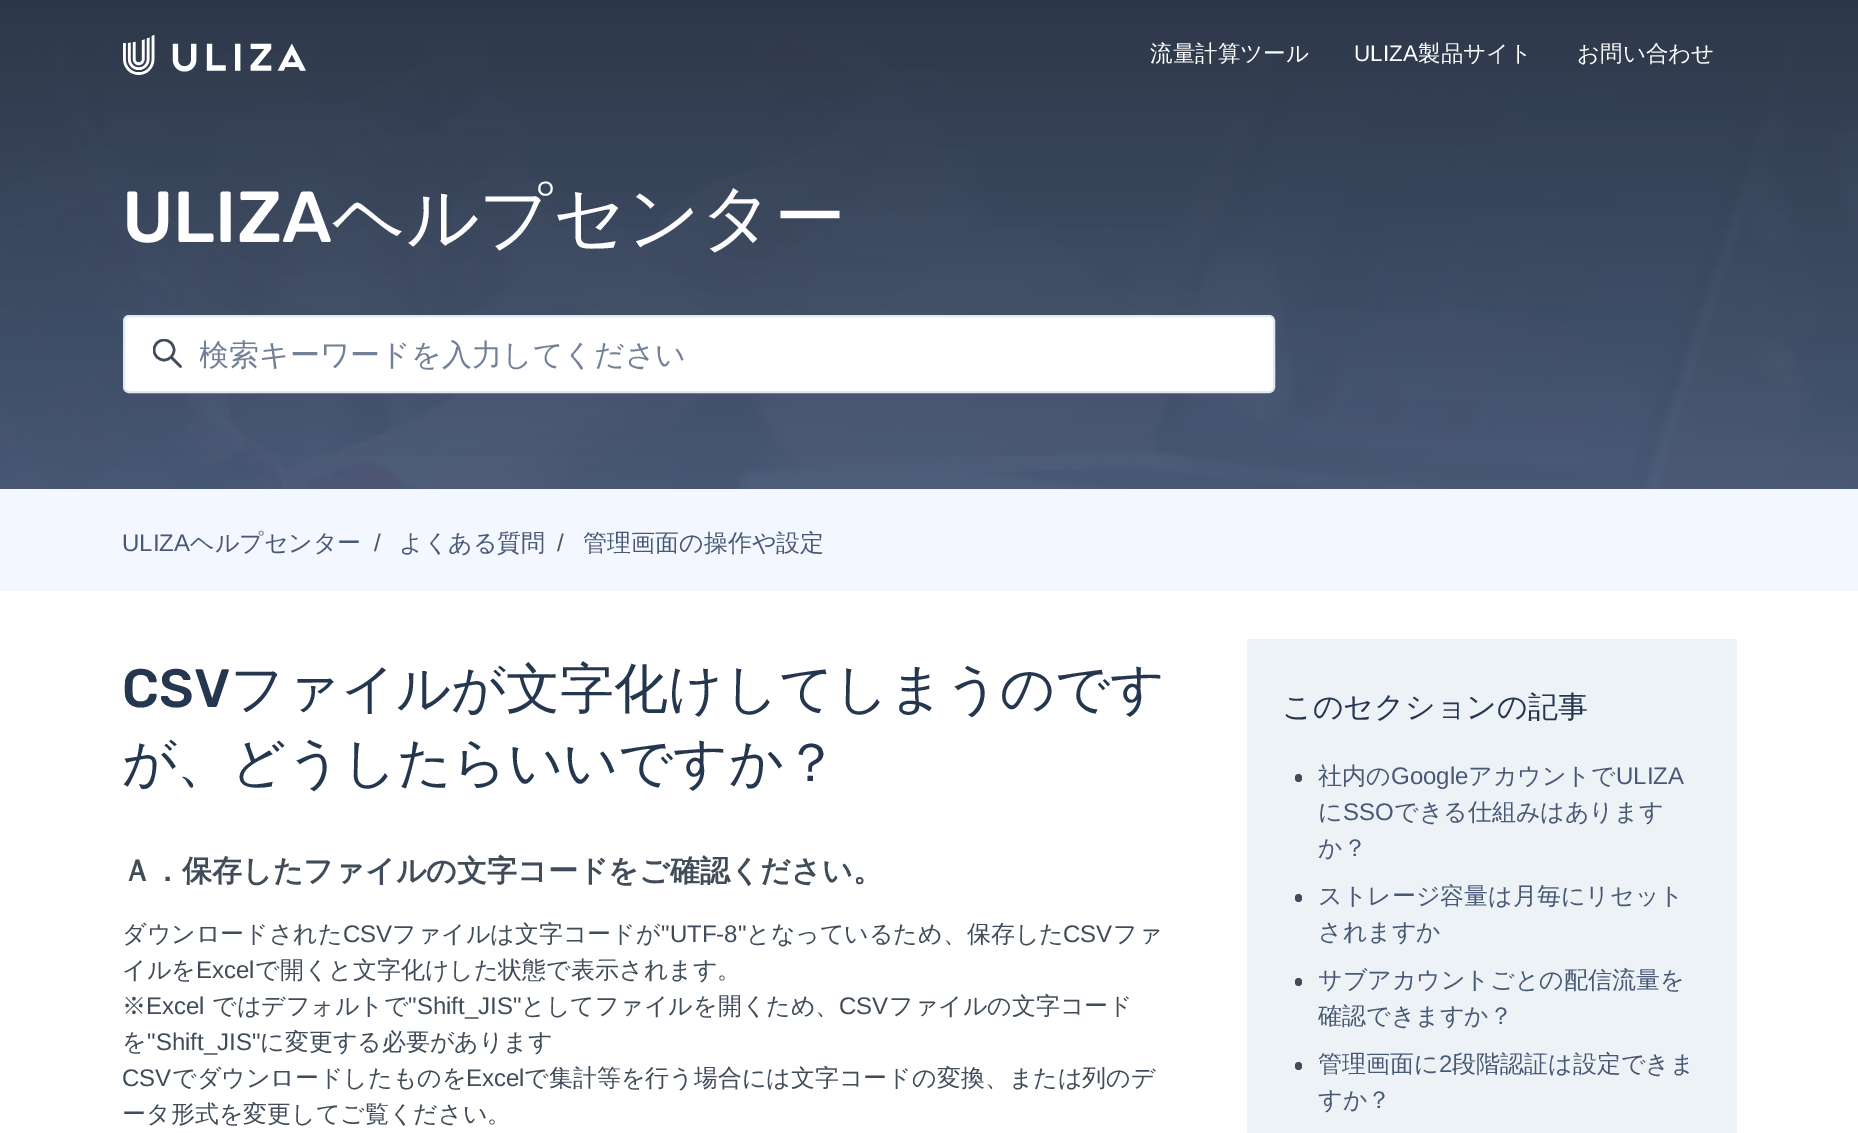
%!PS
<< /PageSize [1858 1133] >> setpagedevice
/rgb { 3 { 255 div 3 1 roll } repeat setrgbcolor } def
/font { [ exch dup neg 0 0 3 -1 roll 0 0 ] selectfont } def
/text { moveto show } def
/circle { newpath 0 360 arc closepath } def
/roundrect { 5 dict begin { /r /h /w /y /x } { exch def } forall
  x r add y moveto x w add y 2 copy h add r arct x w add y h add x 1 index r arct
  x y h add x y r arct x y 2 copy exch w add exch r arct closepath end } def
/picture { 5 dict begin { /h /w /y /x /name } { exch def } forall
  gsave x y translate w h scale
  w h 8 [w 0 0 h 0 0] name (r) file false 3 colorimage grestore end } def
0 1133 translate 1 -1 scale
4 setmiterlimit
255 255 255 rgb
0 0 1858 1133 rectfill
(img_02.rgb) 0 0 1858 489 picture
(img_01.rgb) 123 35 183 40 picture
124 316 1150 76 5 roundrect gsave fill grestore
226 232 240 rgb
2 setlinewidth
stroke
gsave
153 339 30 30 rectclip
64 76 89 rgb
2.5 setlinewidth
164 350 10 circle stroke
grestore
64 76 89 rgb
2.5 setlinewidth
1 setlinecap
180.5 366.5 moveto -8.5 -8.5 rlineto stroke
243 247 255 rgb
0 489 1858 102 rectfill
237 242 247 rgb
1247 639 490 494 rectfill
64 76 89 rgb
1295 774 7 8 3.5 roundrect fill
1295 894 7 8 3.5 roundrect fill
1295 978 7 8 3.5 roundrect fill
1295 1062 7 8 3.5 roundrect fill
/WenQuanYiZenHei-Medium 22.5 font
254 254 254 rgb
(流量計算ツール) 1150 61 text
/LiberationSans-Regular 22.5 font
(ULIZA) 1354 61 text
/WenQuanYiZenHei-Medium 22.5 font
(製品サイト) 1418 61 text
(お問い合わせ) 1577 61 text
/Rubik-Medium 72 font
(ULIZA) 122 242 text
/WenQuanYiZenHei-Medium 72 font
(ヘルプセンター) 332 242 text
gsave
200 335 1045 40 rectclip
/WenQuanYiZenHei-Medium 30 font
113 128 150 rgb
(検索キーワードを入力してください) 199 365 text
grestore
/LiberationSans-Regular 24 font
72 89 118 rgb
(ULIZA) 122 551 text
/WenQuanYiZenHei-Medium 24 font
(ヘルプセンター) 190 551 text
/LiberationSans-Regular 24 font
74 85 104 rgb
(/) 374 551 text
/WenQuanYiZenHei-Medium 24 font
72 89 118 rgb
(よくある質問) 399 551 text
/LiberationSans-Regular 24 font
74 85 104 rgb
(/) 557 551 text
/WenQuanYiZenHei-Medium 24 font
72 89 118 rgb
(管理画面の操作や設定) 583 551 text
/Rubik-Medium 54 font
36 55 78 rgb
(CSV) 122 707 text
/WenQuanYiZenHei-Medium 54 font
(ファイルが文字化けしてしまうのです) 230 707 text
(が、どうしたらいいですか？) 122 781 text
/WenQuanYiZenHei-Bold 30 font
64 76 89 rgb
(Ａ．保存したファイルの文字コードをご確認ください。) 122 881 text
/WenQuanYiZenHei-Medium 24 font
(ダウンロードされた) 122 942 text
/LiberationSans-Regular 24 font
(CSV) 343 942 text
/WenQuanYiZenHei-Medium 24 font
(ファイルは文字コードが) 392 942 text
/LiberationSans-Regular 24 font
("UTF-8") 661 942 text
/WenQuanYiZenHei-Medium 24 font
(となっているため、保存した) 746 942 text
/LiberationSans-Regular 24 font
(CSV) 1063 942 text
/WenQuanYiZenHei-Medium 24 font
(ファ) 1113 942 text
(イルを) 122 978 text
/LiberationSans-Regular 24 font
(Excel) 196 978 text
/WenQuanYiZenHei-Medium 24 font
(で開くと文字化けした状態で表示されます。) 255 978 text
(※) 122 1014 text
/LiberationSans-Regular 24 font
(Excel) 146 1014 text
/WenQuanYiZenHei-Medium 24 font
(ではデフォルトで) 212 1014 text
/LiberationSans-Regular 24 font
("Shift_JIS") 408 1014 text
/WenQuanYiZenHei-Medium 24 font
(としてファイルを開くため、) 521 1014 text
/LiberationSans-Regular 24 font
(CSV) 839 1014 text
/WenQuanYiZenHei-Medium 24 font
(ファイルの文字コード) 889 1014 text
(を) 122 1050 text
/LiberationSans-Regular 24 font
("Shift_JIS") 147 1050 text
/WenQuanYiZenHei-Medium 24 font
(に変更する必要があります) 260 1050 text
/LiberationSans-Regular 24 font
(CSV) 122 1086 text
/WenQuanYiZenHei-Medium 24 font
(でダウンロードしたものを) 172 1086 text
/LiberationSans-Regular 24 font
(Excel) 466 1086 text
/WenQuanYiZenHei-Medium 24 font
(で集計等を行う場合には文字コードの変換、または列のデ) 524 1086 text
(ータ形式を変更してご覧ください。) 122 1122 text
/WenQuanYiZenHei-Medium 30 font
36 55 78 rgb
(このセクションの記事) 1282 717 text
/WenQuanYiZenHei-Medium 24 font
72 89 118 rgb
(社内の) 1318 784 text
/LiberationSans-Regular 24 font
(Google) 1391 784 text
/WenQuanYiZenHei-Medium 24 font
(アカウントで) 1468 784 text
/LiberationSans-Regular 24 font
(ULIZA) 1616 784 text
/WenQuanYiZenHei-Medium 24 font
(に) 1318 820 text
/LiberationSans-Regular 24 font
(SSO) 1343 820 text
/WenQuanYiZenHei-Medium 24 font
(できる仕組みはあります) 1394 820 text
(か？) 1318 856 text
(ストレージ容量は月毎にリセット) 1318 904 text
(されますか) 1318 940 text
(サブアカウントごとの配信流量を) 1318 988 text
(確認できますか？) 1318 1024 text
(管理画面に) 1318 1072 text
/LiberationSans-Regular 24 font
(2) 1439 1072 text
/WenQuanYiZenHei-Medium 24 font
(段階認証は設定できま) 1452 1072 text
(すか？) 1318 1108 text
showpage
